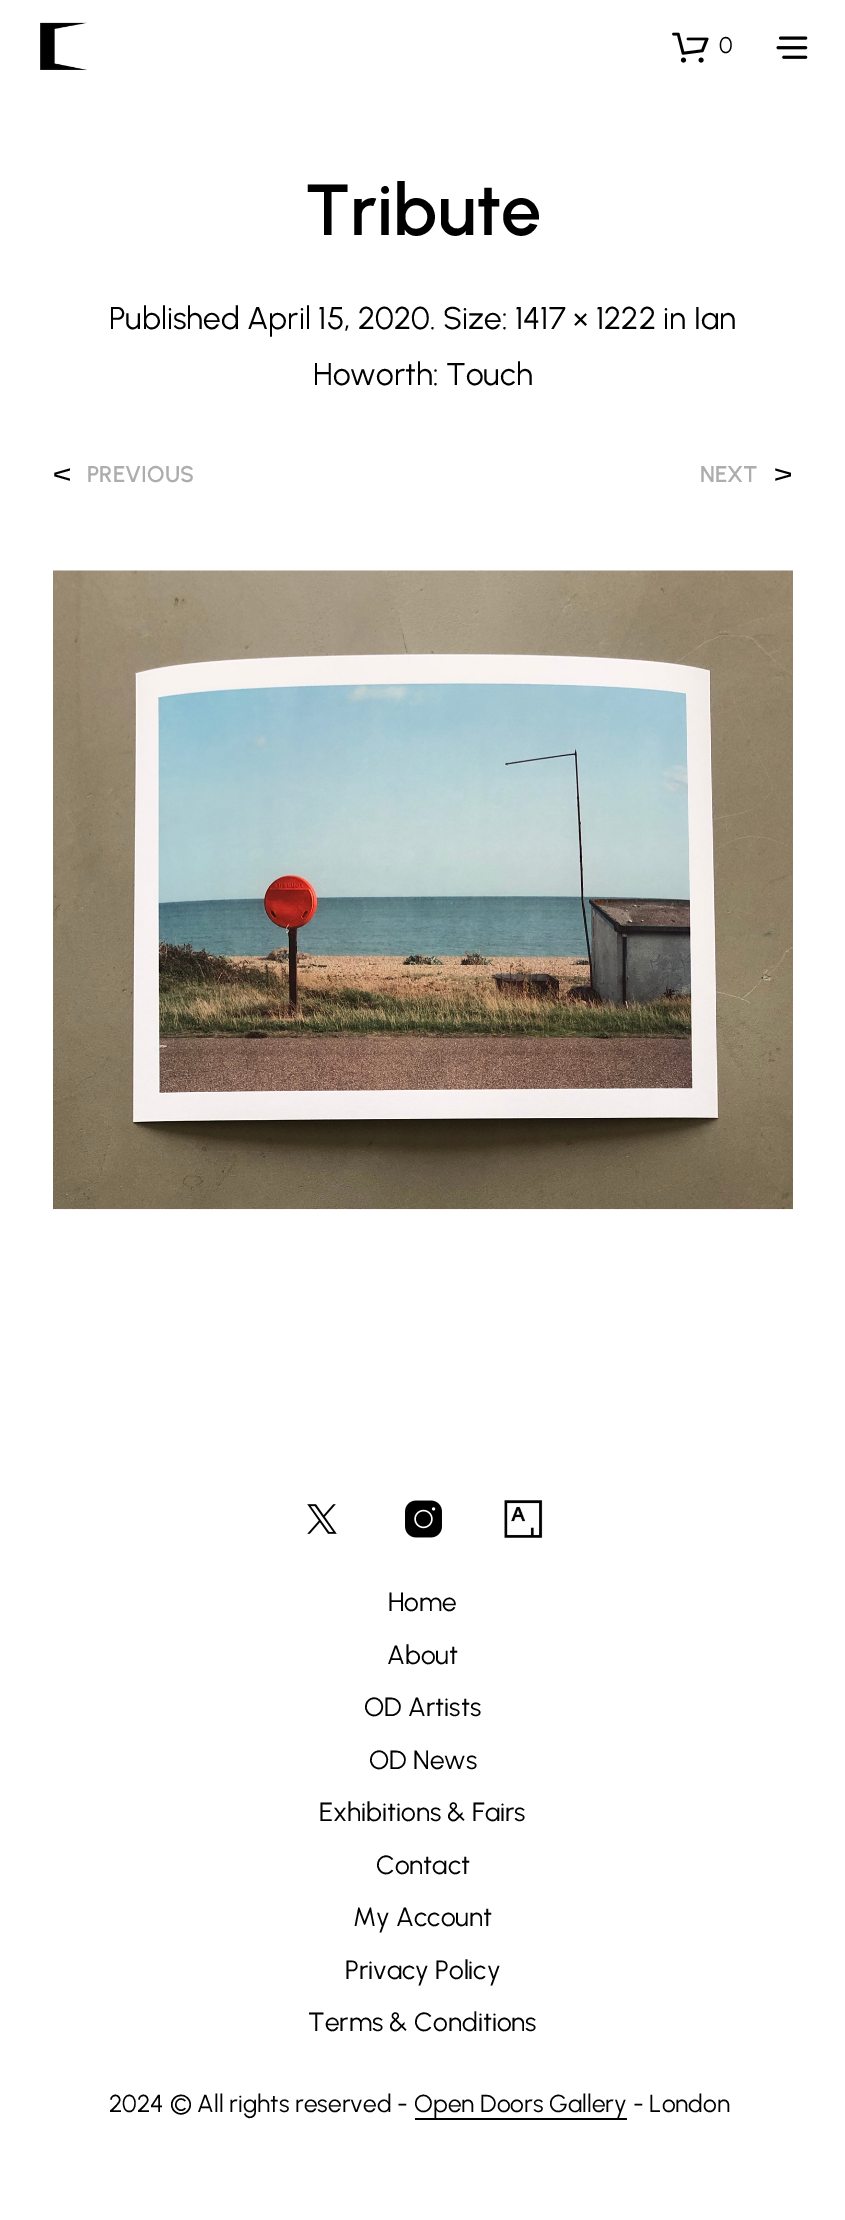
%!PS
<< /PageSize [845 2220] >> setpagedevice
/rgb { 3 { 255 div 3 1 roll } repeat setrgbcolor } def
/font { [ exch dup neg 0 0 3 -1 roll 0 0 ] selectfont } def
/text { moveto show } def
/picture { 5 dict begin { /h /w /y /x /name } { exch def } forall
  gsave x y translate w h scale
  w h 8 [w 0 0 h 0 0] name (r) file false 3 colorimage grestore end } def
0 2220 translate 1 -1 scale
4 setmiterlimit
255 255 255 rgb
0 0 845 2220 rectfill
(img_01.rgb) 40 22 47 49 picture
(img_02.rgb) 672 32 37 31 picture
(img_03.rgb) 776 36 32 23 picture
(img_04.rgb) 53 570 740 640 picture
(img_05.rgb) 307 1504 30 30 picture
(img_06.rgb) 405 1500 37 38 picture
(img_07.rgb) 504 1500 39 38 picture
0 0 0 rgb
415 2118 212 2 rectfill
/Urbanist-Regular 22.75 font
(0) 719 53 text
/Urbanist-SemiBold 72 font
(Tribute) 305 235 text
/Urbanist-Regular 31.5 font
(Published April 15, 2020. Size: 1417 × 1222 in Ian) 109 329 text
(Howorth: Touch) 313 385 text
(<) 53 484 text
/Urbanist-SemiBold 22.75 font
173 173 173 rgb
(PREVIOUS) 87 482 text
(NEXT) 700 482 text
/Urbanist-Regular 31.5 font
0 0 0 rgb
(>) 774 484 text
/Urbanist-Regular 26.25 font
(Home) 388 1611 text
(About) 387 1664 text
(OD Artists) 364 1716 text
(OD News) 369 1769 text
(Exhibitions & Fairs) 319 1821 text
(Contact) 376 1874 text
(My Account) 353 1926 text
(Privacy Policy) 345 1979 text
(Terms & Conditions) 308 2031 text
/Urbanist-Regular 24.5 font
(2024 © All rights reserved -) 109 2112 text
(Open Doors Gallery - London) 414 2112 text
showpage
